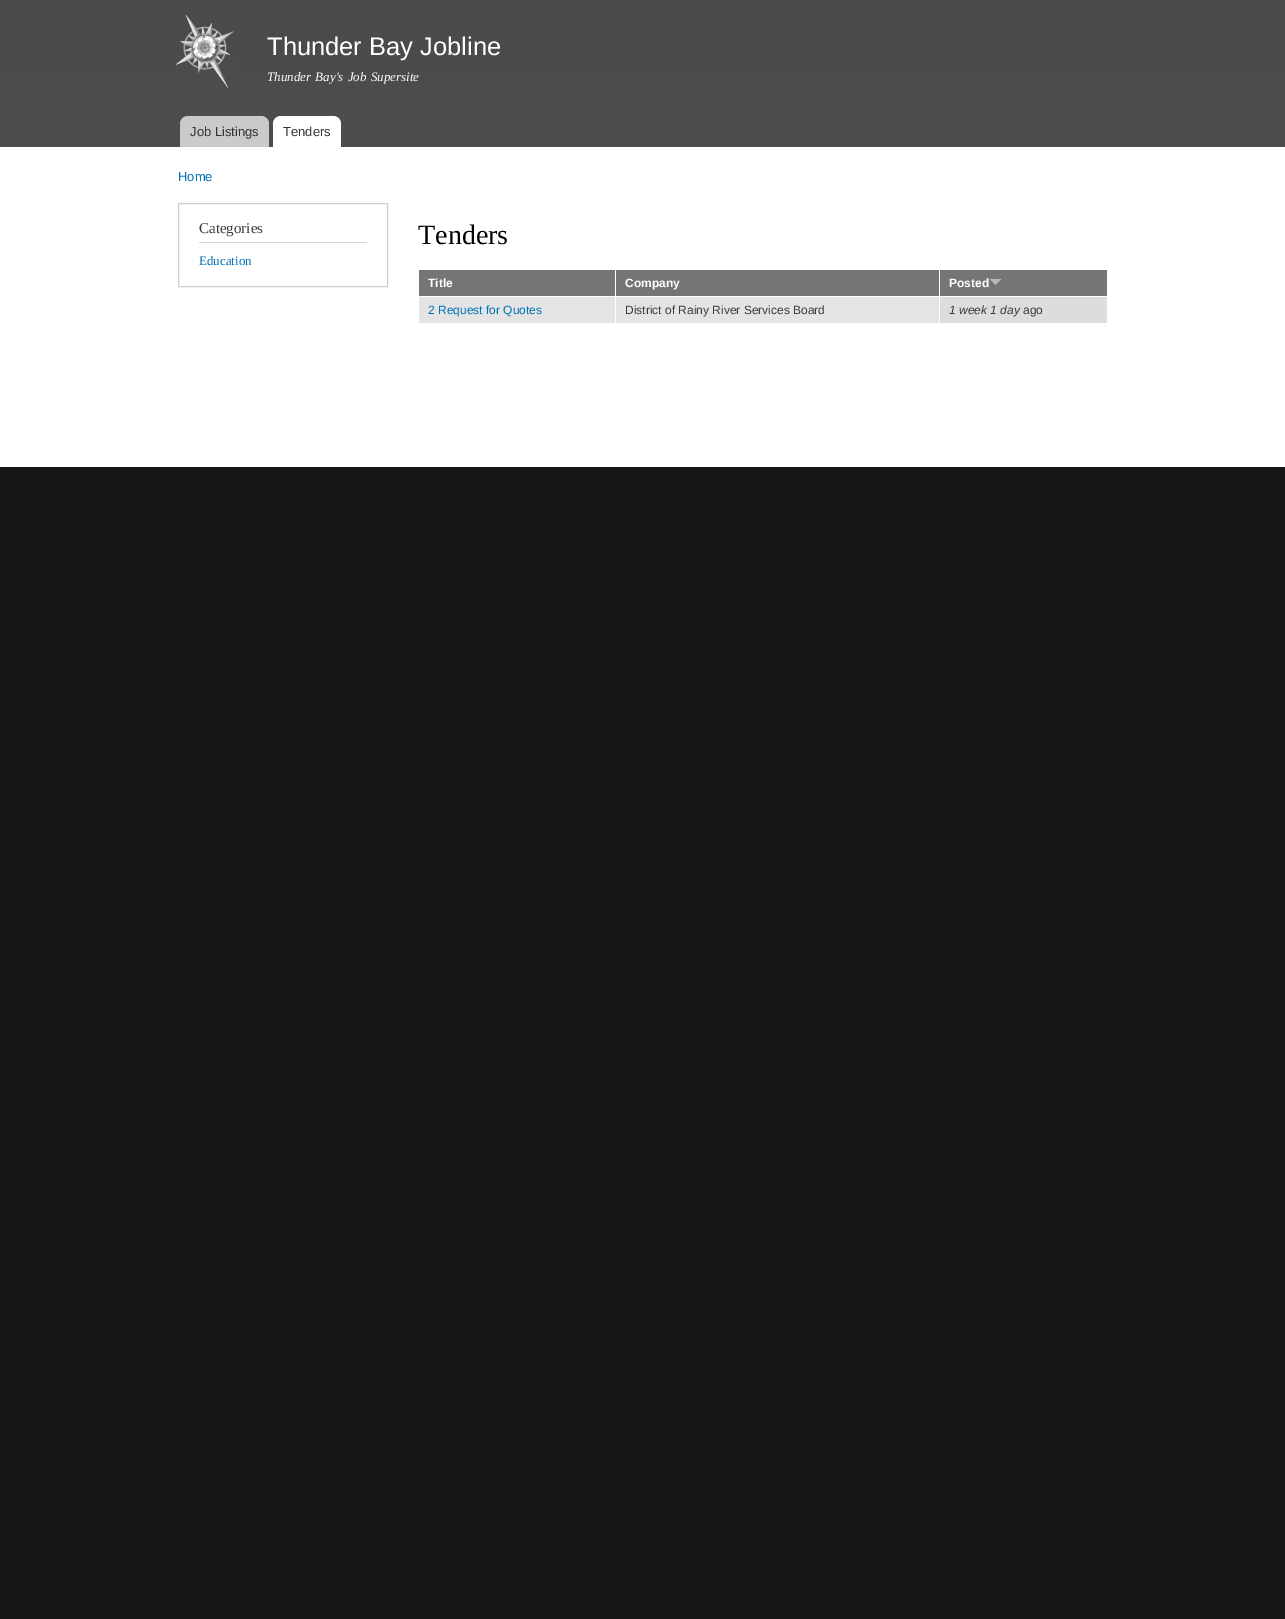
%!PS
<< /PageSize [1285 1619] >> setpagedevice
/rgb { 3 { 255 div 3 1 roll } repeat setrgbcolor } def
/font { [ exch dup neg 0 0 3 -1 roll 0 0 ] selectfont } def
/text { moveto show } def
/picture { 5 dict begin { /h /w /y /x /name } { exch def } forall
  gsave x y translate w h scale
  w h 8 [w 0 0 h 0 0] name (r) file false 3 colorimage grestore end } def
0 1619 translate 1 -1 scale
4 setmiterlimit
22 22 23 rgb
0 0 1285 1619 rectfill
255 255 255 rgb
0 147 1285 320 rectfill
gsave 0 0 moveto 1285 0 rlineto 0 147 rlineto -1285 0 rlineto closepath clip newpath
<< /ShadingType 2 /ColorSpace /DeviceRGB /Coords [643 0 643 147] /Extend [true true] /Function << /FunctionType 2 /Domain [0 1] /C0 [0.29 0.29 0.29] /C1 [0.306 0.306 0.306] /N 1 >> >> shfill grestore
(img_01.rgb) 176 15 58 73 picture
202 202 202 rgb
188 116 moveto 73 0 rlineto 4.5 0 8 3.5 8 8 rcurveto 0 23 rlineto -89 0 rlineto 0 -23 rlineto 0 -4.5 3.5 -8 8 -8 rcurveto closepath fill
255 255 255 rgb
281 116 moveto 52 0 rlineto 4.5 0 8 3.5 8 8 rcurveto 0 23 rlineto -68 0 rlineto 0 -23 rlineto 0 -4.5 3.5 -8 8 -8 rcurveto closepath fill
208 208 208 rgb
178.5 203.5 209 83 rectstroke
214 214 214 rgb
199 242 168 1 rectfill
117 117 117 rgb
419 270 196 26 rectfill
616 270 323 26 rectfill
940 270 167 26 rectfill
(img_02.rgb) 990 279 11 6 picture
228 228 228 rgb
419 297 520 26 rectfill
255 255 255 rgb
615 296 1 28 rectfill
221 221 221 rgb
940 297 167 26 rectfill
/LiberationSans-Regular 25.5 font
255 255 255 rgb
(Thunder Bay Jobline) 267 55 text
/LiberationSerif-Italic 13 font
267 81 moveto 1 0 32 (Thunder Bay's Job Supersite) widthshow
/LiberationSans-Regular 13 font
51 51 51 rgb
(Job Listings) 190 136 text
(Tenders) 283 136 text
0 114 182 rgb
(Home) 178 181 text
/LiberationSerif-Regular 15 font
59 59 59 rgb
(Categories) 199 233 text
/LiberationSerif-Regular 13 font
0 114 182 rgb
(Education) 199 265 text
/LiberationSerif-Regular 28 font
0 0 0 rgb
(Tenders) 418 244 text
/LiberationSans-Bold 12 font
255 255 255 rgb
(Title) 428 287 text
(Company) 625 287 text
(Posted) 949 287 text
/LiberationSans-Regular 12 font
0 114 182 rgb
(2 Request for Quotes) 428 314 text
59 59 59 rgb
(District of Rainy River Services Board) 625 314 text
/LiberationSans-Italic 12 font
(1 week 1 day) 949 314 text
/LiberationSans-Regular 12 font
(ago) 1023 314 text
showpage
